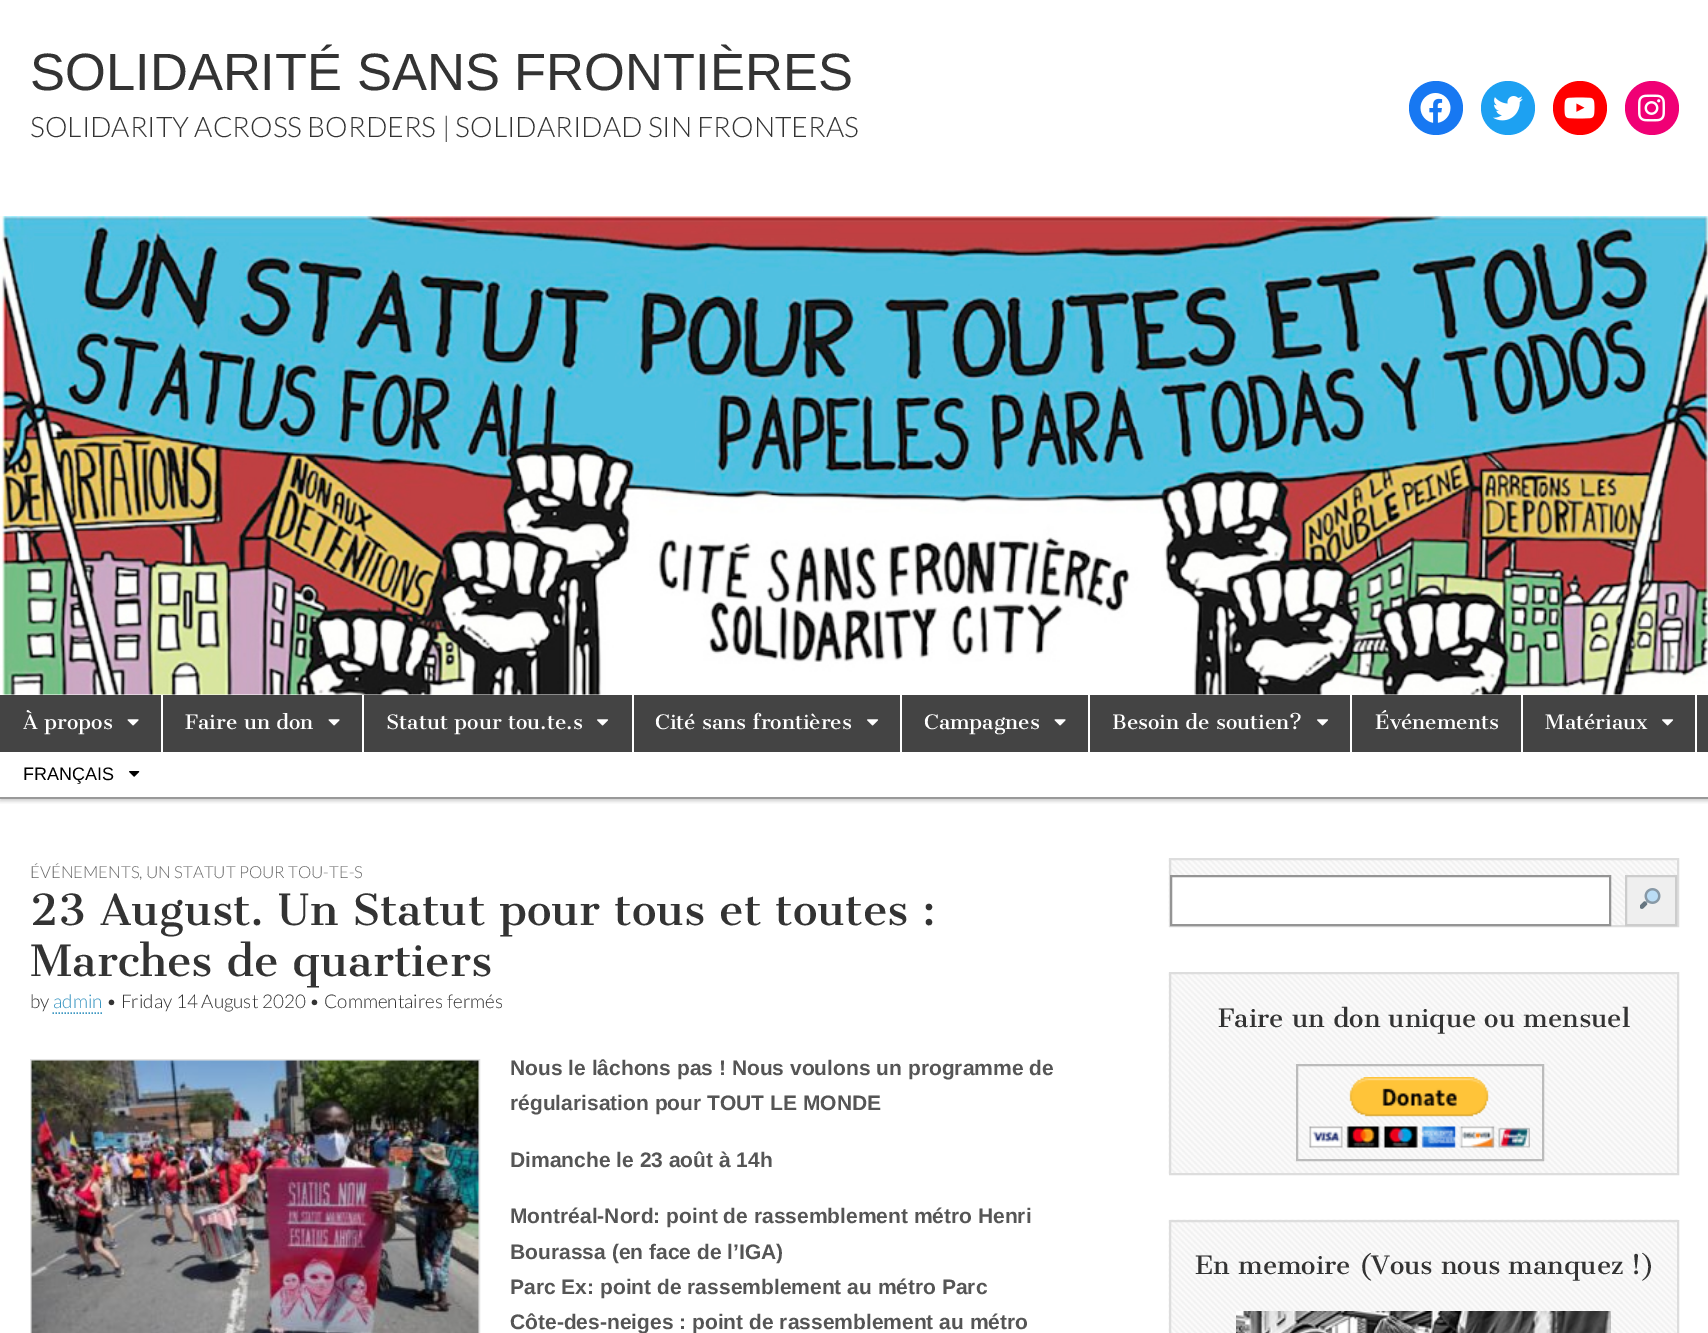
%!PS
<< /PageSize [1708 1333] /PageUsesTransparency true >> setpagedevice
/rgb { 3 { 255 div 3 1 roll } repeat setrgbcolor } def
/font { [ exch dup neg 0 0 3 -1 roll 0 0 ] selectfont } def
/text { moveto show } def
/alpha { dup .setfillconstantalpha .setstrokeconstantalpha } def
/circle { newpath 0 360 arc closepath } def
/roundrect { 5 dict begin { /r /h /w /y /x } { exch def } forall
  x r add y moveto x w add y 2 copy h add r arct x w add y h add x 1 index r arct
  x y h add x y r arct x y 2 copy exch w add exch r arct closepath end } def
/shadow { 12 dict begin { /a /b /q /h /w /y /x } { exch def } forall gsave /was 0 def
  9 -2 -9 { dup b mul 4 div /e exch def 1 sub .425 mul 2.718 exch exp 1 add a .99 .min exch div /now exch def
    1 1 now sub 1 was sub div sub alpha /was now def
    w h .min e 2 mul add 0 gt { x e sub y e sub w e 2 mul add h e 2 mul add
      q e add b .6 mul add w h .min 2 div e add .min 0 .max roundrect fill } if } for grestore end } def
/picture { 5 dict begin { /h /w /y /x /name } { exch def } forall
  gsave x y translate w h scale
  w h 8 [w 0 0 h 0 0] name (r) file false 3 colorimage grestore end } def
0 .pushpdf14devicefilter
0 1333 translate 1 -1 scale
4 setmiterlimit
255 255 255 rgb
0 0 1708 1333 rectfill
23 120 242 rgb
1436 108 27 circle fill
(img_01.rgb) 1420 93 31 30 picture
29 161 242 rgb
1508 108 27 circle fill
(img_02.rgb) 1493 96 30 25 picture
255 0 0 rgb
1580 108 27 circle fill
(img_03.rgb) 1564 97 31 22 picture
240 0 117 rgb
1652 108 27 circle fill
(img_04.rgb) 1638 94 27 28 picture
(img_05.rgb) 0 216 1708 479 picture
68 68 68 rgb
0 695 1708 57 rectfill
gsave
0 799 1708 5 rectclip
0 0 0 rgb
0 755 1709 46 0 2 0.2 shadow
grestore
255 255 255 rgb
161 695 2 57 rectfill
(img_06.rgb) 127 719 12 7 picture
362 695 2 57 rectfill
(img_06.rgb) 328 719 12 7 picture
632 695 2 57 rectfill
(img_07.rgb) 597 719 12 7 picture
900 695 2 57 rectfill
(img_07.rgb) 867 719 12 7 picture
1088 695 2 57 rectfill
(img_06.rgb) 1054 719 12 7 picture
1350 695 2 57 rectfill
(img_07.rgb) 1317 719 12 7 picture
1521 695 2 57 rectfill
1695 695 2 57 rectfill
(img_07.rgb) 1662 719 12 7 picture
153 153 153 rgb
0 797 1708 2 rectfill
(img_08.rgb) 129 771 11 6 picture
61 151 194 rgb
1.5 setlinewidth
[1.5 1.5] 0 setdash
52.5 1013 moveto 49.5 0 rlineto stroke
226 226 226 rgb
2 setlinewidth
[] 0 setdash
31 1060 448 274 rectstroke
(img_09.rgb) 31 1060 448 273 picture
(img_10.rgb) 1168 858 509 69 picture
221 221 221 rgb
1170 859 508 67 rectstroke
255 255 255 rgb
1171 876 moveto 439 0 rlineto 0 49 rlineto -439 0 rlineto closepath gsave fill grestore
148 148 148 rgb
stroke
239 239 239 rgb
1626 876 moveto 50 0 rlineto 0 49 rlineto -50 0 rlineto closepath gsave fill grestore
204 204 204 rgb
stroke
(img_11.rgb) 1640 888 21 21 picture
(img_12.rgb) 1168 972 509 203 picture
221 221 221 rgb
1170 973 508 201 rectstroke
187 187 187 rgb
1297 1065 246 95 rectstroke
(img_13.rgb) 1309 1077 221 71 picture
(img_14.rgb) 1168 1219 511 114 picture
221 221 221 rgb
1170 1221 508 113 rectstroke
(img_15.rgb) 1236 1311 375 22 picture
/LiberationSans-Regular 52.5 font
51 51 51 rgb
(SOLIDARITÉ SANS FRONTIÈRES) 30 90 text
/Lato-Light 28.15 font
(SOLIDARITY ACROSS BORDERS | SOLIDARIDAD SIN FRONTERAS) 30 137 text
/CantataOne-Regular 19.5 font
255 255 255 rgb
(À propos) 23 729 text
(Faire un don) 185 729 text
(Statut pour tou.te.s) 386 729 text
(Cité sans frontières) 655 729 text
(Campagnes) 924 729 text
(Besoin de soutien?) 1112 729 text
(Événements) 1375 729 text
(Matériaux) 1545 729 text
/LiberationSans-Regular 18 font
0 0 0 rgb
(FRANÇAIS) 23 780 text
/Lato-Light 16.75 font
102 102 102 rgb
(ÉVÉNEMENTS, UN STATUT POUR TOU-TE-S) 30 878 text
/CantataOne-Regular 42 font
51 51 51 rgb
(23 August. Un Statut pour tous et toutes :) 30 925 text
(Marches de quartiers) 30 976 text
/Lato-Light 18.9 font
(by) 30 1008 text
61 151 194 rgb
(admin) 53 1008 text
51 51 51 rgb
(• Friday 14 August 2020 • Commentaires fermés) 106 1008 text
/LiberationSans-Bold 21 font
85 85 85 rgb
(Nous le lâchons pas ! Nous voulons un programme de) 510 1075 text
(régularisation pour TOUT LE MONDE) 510 1110 text
(Dimanche le 23 août à 14h) 510 1167 text
(Montréal-Nord: point de rassemblement métro Henri) 510 1223 text
(Bourassa \(en face de l’IGA\)) 510 1259 text
(Parc Ex: point de rassemblement au métro Parc) 510 1294 text
(Côte-des-neiges : point de rassemblement au métro) 510 1329 text
/CantataOne-Regular 24.6 font
51 51 51 rgb
(Faire un don unique ou mensuel) 1218 1027 text
(En memoire \(Vous nous manquez !\)) 1195 1274 text
.poppdf14devicefilter showpage
